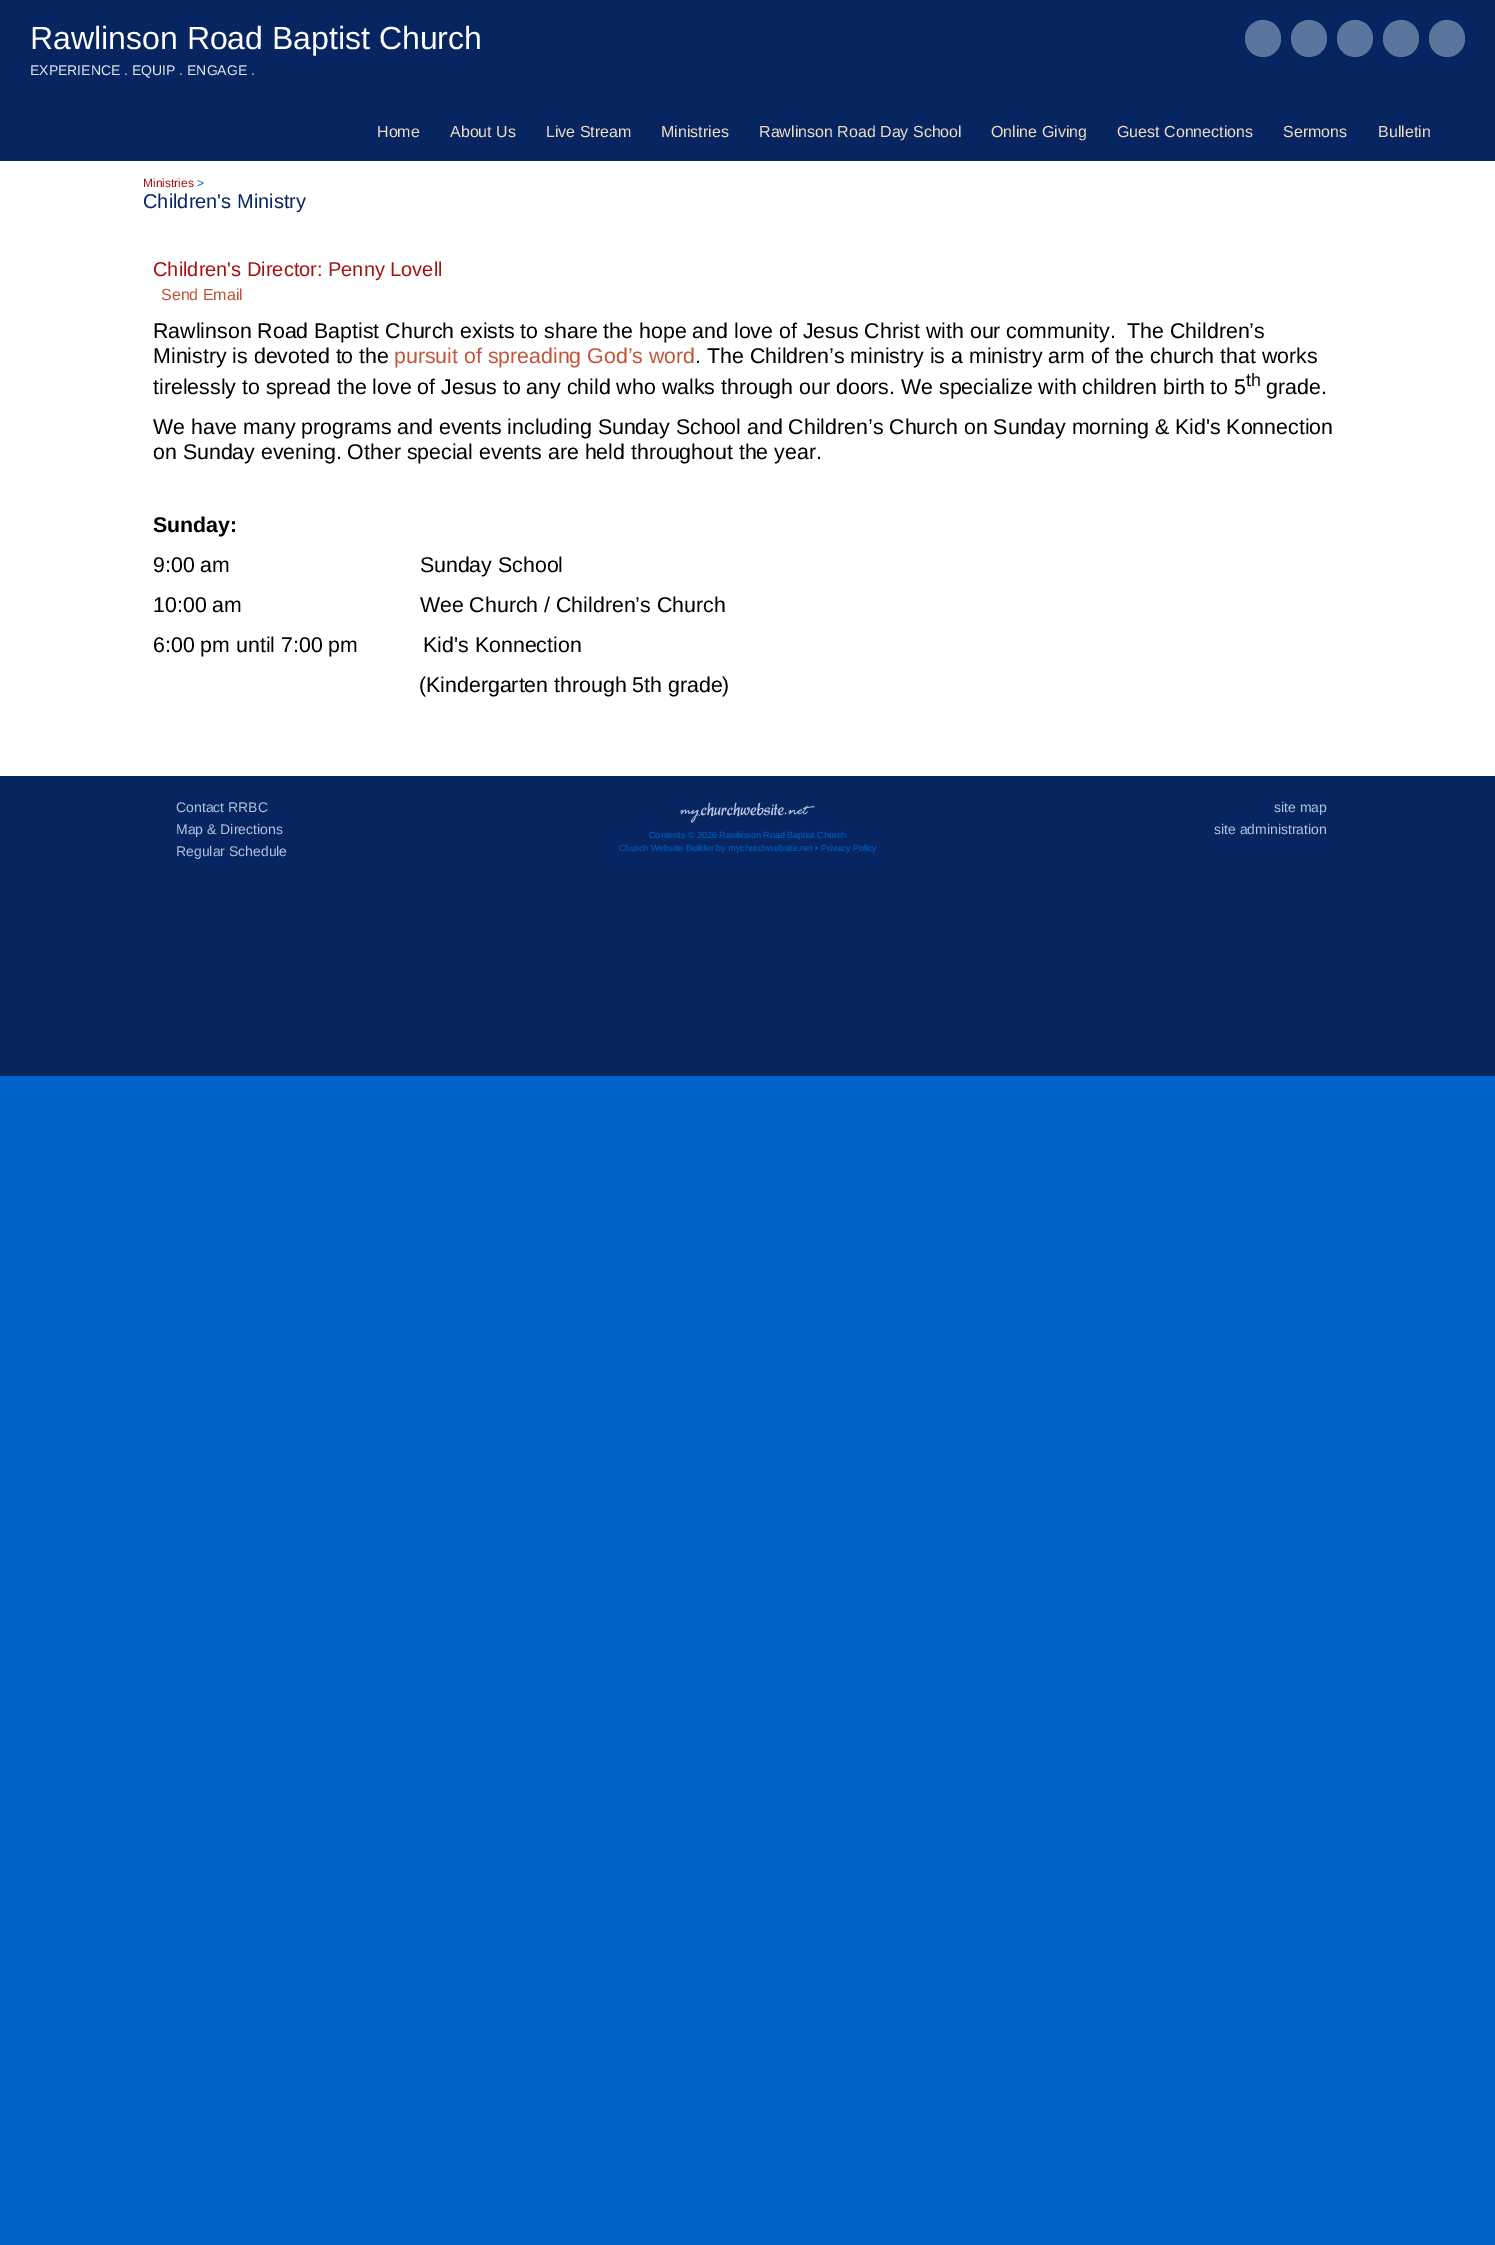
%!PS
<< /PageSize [1495 2245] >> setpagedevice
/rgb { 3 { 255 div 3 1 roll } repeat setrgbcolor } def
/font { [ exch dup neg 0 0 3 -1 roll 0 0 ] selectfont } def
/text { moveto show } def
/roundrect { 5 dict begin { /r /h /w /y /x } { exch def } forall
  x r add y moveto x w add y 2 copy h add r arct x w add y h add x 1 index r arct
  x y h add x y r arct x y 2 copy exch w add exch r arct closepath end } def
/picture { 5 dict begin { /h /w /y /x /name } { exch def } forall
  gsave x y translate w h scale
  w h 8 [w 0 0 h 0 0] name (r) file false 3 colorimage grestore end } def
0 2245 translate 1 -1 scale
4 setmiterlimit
0 99 203 rgb
0 0 1495 2245 rectfill
6 37 97 rgb
0 0 1495 161 rectfill
92 117 159 rgb
1245 20 36 37 18 roundrect fill
1291 20 36 37 18 roundrect fill
1337 20 36 37 18 roundrect fill
1383 20 36 37 18 roundrect fill
1429 20 36 37 18 roundrect fill
255 255 255 rgb
0 161 1495 615 rectfill
6 37 97 rgb
0 776 1495 300 rectfill
(img_01.rgb) 680 802 135 21 picture
/LiberationSans-Regular 32 font
255 255 255 rgb
(Rawlinson Road Baptist Church) 30 49 text
/LiberationSans-Regular 14 font
226 233 239 rgb
(EXPERIENCE . EQUIP . ENGAGE .) 30 75 text
/LiberationSans-Regular 16 font
238 222 196 rgb
(Home) 377 137 text
(About Us) 450 137 text
(Live Stream) 546 137 text
(Ministries) 661 137 text
(Rawlinson Road Day School) 759 137 text
(Online Giving) 991 137 text
(Guest Connections) 1117 137 text
(Sermons) 1283 137 text
(Bulletin) 1378 137 text
/LiberationSans-Regular 12 font
162 18 16 rgb
(Ministries) 143 187 text
0 99 203 rgb
(>) 197 187 text
/LiberationSans-Regular 20 font
6 37 97 rgb
(Children's Ministry) 143 208 text
162 18 16 rgb
(Children's Director: Penny Lovell) 153 276 text
/LiberationSans-Regular 16 font
196 84 56 rgb
(Send Email) 161 300 text
/LiberationSans-Regular 21.33 font
0 0 0 rgb
(Rawlinson Road Baptist Church exists to share the hope and love of Jesus Christ with our community.  The Children’s) 153 338 text
(Ministry is devoted to the) 153 363 text
196 84 56 rgb
(pursuit of spreading God’s word) 394 363 text
0 0 0 rgb
(. The Children’s ministry is a ministry arm of the church that works) 695 363 text
(tirelessly to spread the love of Jesus to any child who walks through our doors. We specialize with children birth to 5) 153 394 text
/LiberationSans-Regular 18 font
(th) 1246 386 text
/LiberationSans-Regular 21.33 font
(grade.) 1266 394 text
(We have many programs and events including Sunday School and Children’s Church on Sunday morning & Kid's Konnection) 153 434 text
(on Sunday evening. Other special events are held throughout the year.) 153 459 text
/LiberationSans-Bold 21.33 font
(Sunday:) 153 532 text
/LiberationSans-Regular 21.33 font
(9:00 am                                Sunday School) 153 572 text
(10:00 am                              Wee Church / Children’s Church) 153 612 text
(6:00 pm until 7:00 pm           Kid's Konnection) 153 652 text
(\(Kindergarten through 5th grade\)) 419 692 text
/LiberationSans-Regular 14 font
178 196 221 rgb
(Contact RRBC) 176 812 text
(Map & Directions) 176 834 text
(Regular Schedule) 176 856 text
/LiberationSans-Regular 9 font
0 99 203 rgb
(Contents © 2026 Rawlinson Road Baptist Church) 649 838 text
(Church Website Builder by mychurchwebsite.net • Privacy Policy) 619 851 text
/LiberationSans-Regular 14 font
178 196 221 rgb
(site map) 1274 812 text
(site administration) 1214 834 text
showpage
